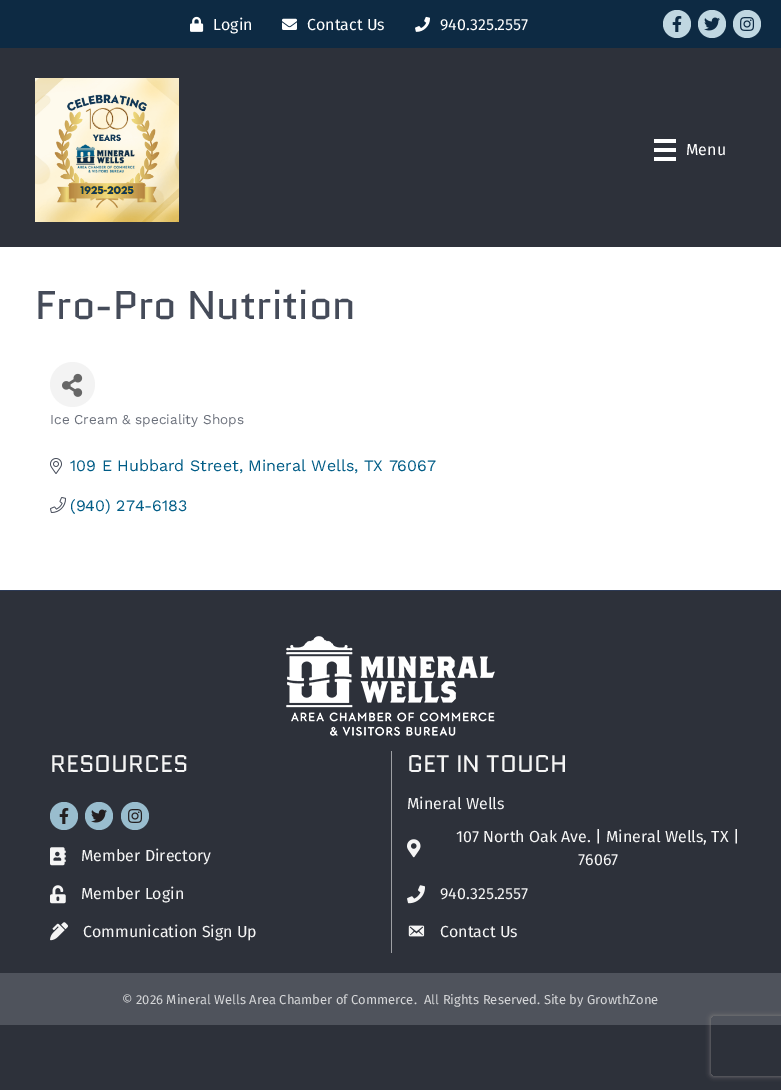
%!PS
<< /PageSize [781 1090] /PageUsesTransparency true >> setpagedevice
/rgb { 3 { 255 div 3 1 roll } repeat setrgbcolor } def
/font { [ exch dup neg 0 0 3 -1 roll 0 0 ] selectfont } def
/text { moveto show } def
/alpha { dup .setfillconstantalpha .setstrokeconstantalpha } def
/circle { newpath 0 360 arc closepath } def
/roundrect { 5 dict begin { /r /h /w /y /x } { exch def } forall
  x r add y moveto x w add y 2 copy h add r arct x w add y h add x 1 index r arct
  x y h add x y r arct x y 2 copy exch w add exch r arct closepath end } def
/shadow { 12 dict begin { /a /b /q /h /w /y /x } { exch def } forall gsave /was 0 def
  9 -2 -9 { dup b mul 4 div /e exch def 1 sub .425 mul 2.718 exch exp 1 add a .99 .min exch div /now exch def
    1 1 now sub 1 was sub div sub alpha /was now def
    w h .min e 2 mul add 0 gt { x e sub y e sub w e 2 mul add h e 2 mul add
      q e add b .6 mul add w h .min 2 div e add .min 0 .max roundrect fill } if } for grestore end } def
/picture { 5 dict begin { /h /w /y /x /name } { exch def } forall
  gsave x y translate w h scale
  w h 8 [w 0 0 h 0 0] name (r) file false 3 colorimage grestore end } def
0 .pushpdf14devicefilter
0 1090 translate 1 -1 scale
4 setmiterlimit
45 49 58 rgb
0 0 781 1090 rectfill
13 42 67 rgb
0 0 781 48 rectfill
(img_01.rgb) 190 16 14 16 picture
(img_02.rgb) 282 18 15 12 picture
(img_03.rgb) 415 16 15 16 picture
192 215 225 rgb
677 24 14 circle fill
(img_04.rgb) 672 16 10 16 picture
712 24 14 circle fill
(img_05.rgb) 704 17 16 14 picture
747 24 14 circle fill
(img_06.rgb) 740 17 15 14 picture
(img_07.rgb) 35 78 144 144 picture
255 255 255 rgb
654 139 22 4 rectfill
654 148 22 4 rectfill
654 157 22 4 rectfill
0 247 781 343 rectfill
243 243 243 rgb
72.5 384.5 22.5 circle fill
(img_08.rgb) 62 373 21 24 picture
(img_09.rgb) 50 458 12 16 picture
(img_10.rgb) 50 497 16 16 picture
44 58 86 rgb
0 590 781 1 rectfill
(img_11.rgb) 286 636 209 100 picture
153 189 206 rgb
64 816 14 circle fill
(img_12.rgb) 59 808 10 16 picture
99 816 14 circle fill
(img_13.rgb) 91 809 16 14 picture
135 816 14 circle fill
(img_14.rgb) 128 809 15 14 picture
(img_15.rgb) 50 847 16 19 picture
(img_16.rgb) 50 885 16 19 picture
(img_17.rgb) 50 922 18 19 picture
158 160 164 rgb
391 751 1 202 rectfill
(img_18.rgb) 407 839 14 19 picture
(img_19.rgb) 407 885 18 19 picture
(img_20.rgb) 408 925 17 12 picture
79 83 92 rgb
0 973 781 52 rectfill
gsave
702 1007 moveto 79 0 rlineto 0 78 rlineto -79 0 rlineto closepath 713 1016 moveto 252 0 rlineto 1 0 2 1 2 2 rcurveto 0 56 rlineto 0 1 -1 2 -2 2 rcurveto -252 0 rlineto -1 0 -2 -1 -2 -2 rcurveto 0 -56 rlineto 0 -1 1 -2 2 -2 rcurveto closepath eoclip newpath
128 128 128 rgb
711 1016 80 60 2 2.5 1 shadow
grestore
/FiraSans-Regular 16 font
255 255 255 rgb
(Login) 213 30 text
(Contact Us) 307 30 text
(940.325.2557) 440 30 text
(Menu) 686 155 text
/Quantico-Regular 40 font
69 75 89 rgb
(Fro-Pro Nutrition) 35 319 text
/WorkSans-Regular 13.6 font
106 111 122 rgb
(Ice Cream & speciality Shops) 50 424 text
/WorkSans-Regular 16 font
0 92 134 rgb
(109 E Hubbard Street, Mineral Wells, TX 76067) 70 471 text
(\(940\) 274-6183) 70 511 text
/Quantico-Regular 24 font
245 245 245 rgb
(RESOURCES) 50 772 text
/FiraSans-Regular 16 font
(Member Directory) 81 861 text
(Member Login) 81 899 text
(Communication Sign Up) 83 937 text
/Quantico-Regular 24 font
(GET IN TOUCH) 407 772 text
/FiraSans-Regular 16 font
(Mineral Wells) 407 809 text
(107 North Oak Ave. | Mineral Wells, TX |) 456 842 text
(76067) 578 865 text
(940.325.2557) 440 899 text
(Contact Us) 440 937 text
/FiraSans-Regular 13 font
213 214 216 rgb
(© 2026 Mineral Wells Area Chamber of Commerce.) 122 1004 text
(All Rights Reserved. Site by GrowthZone) 424 1004 text
.poppdf14devicefilter showpage
